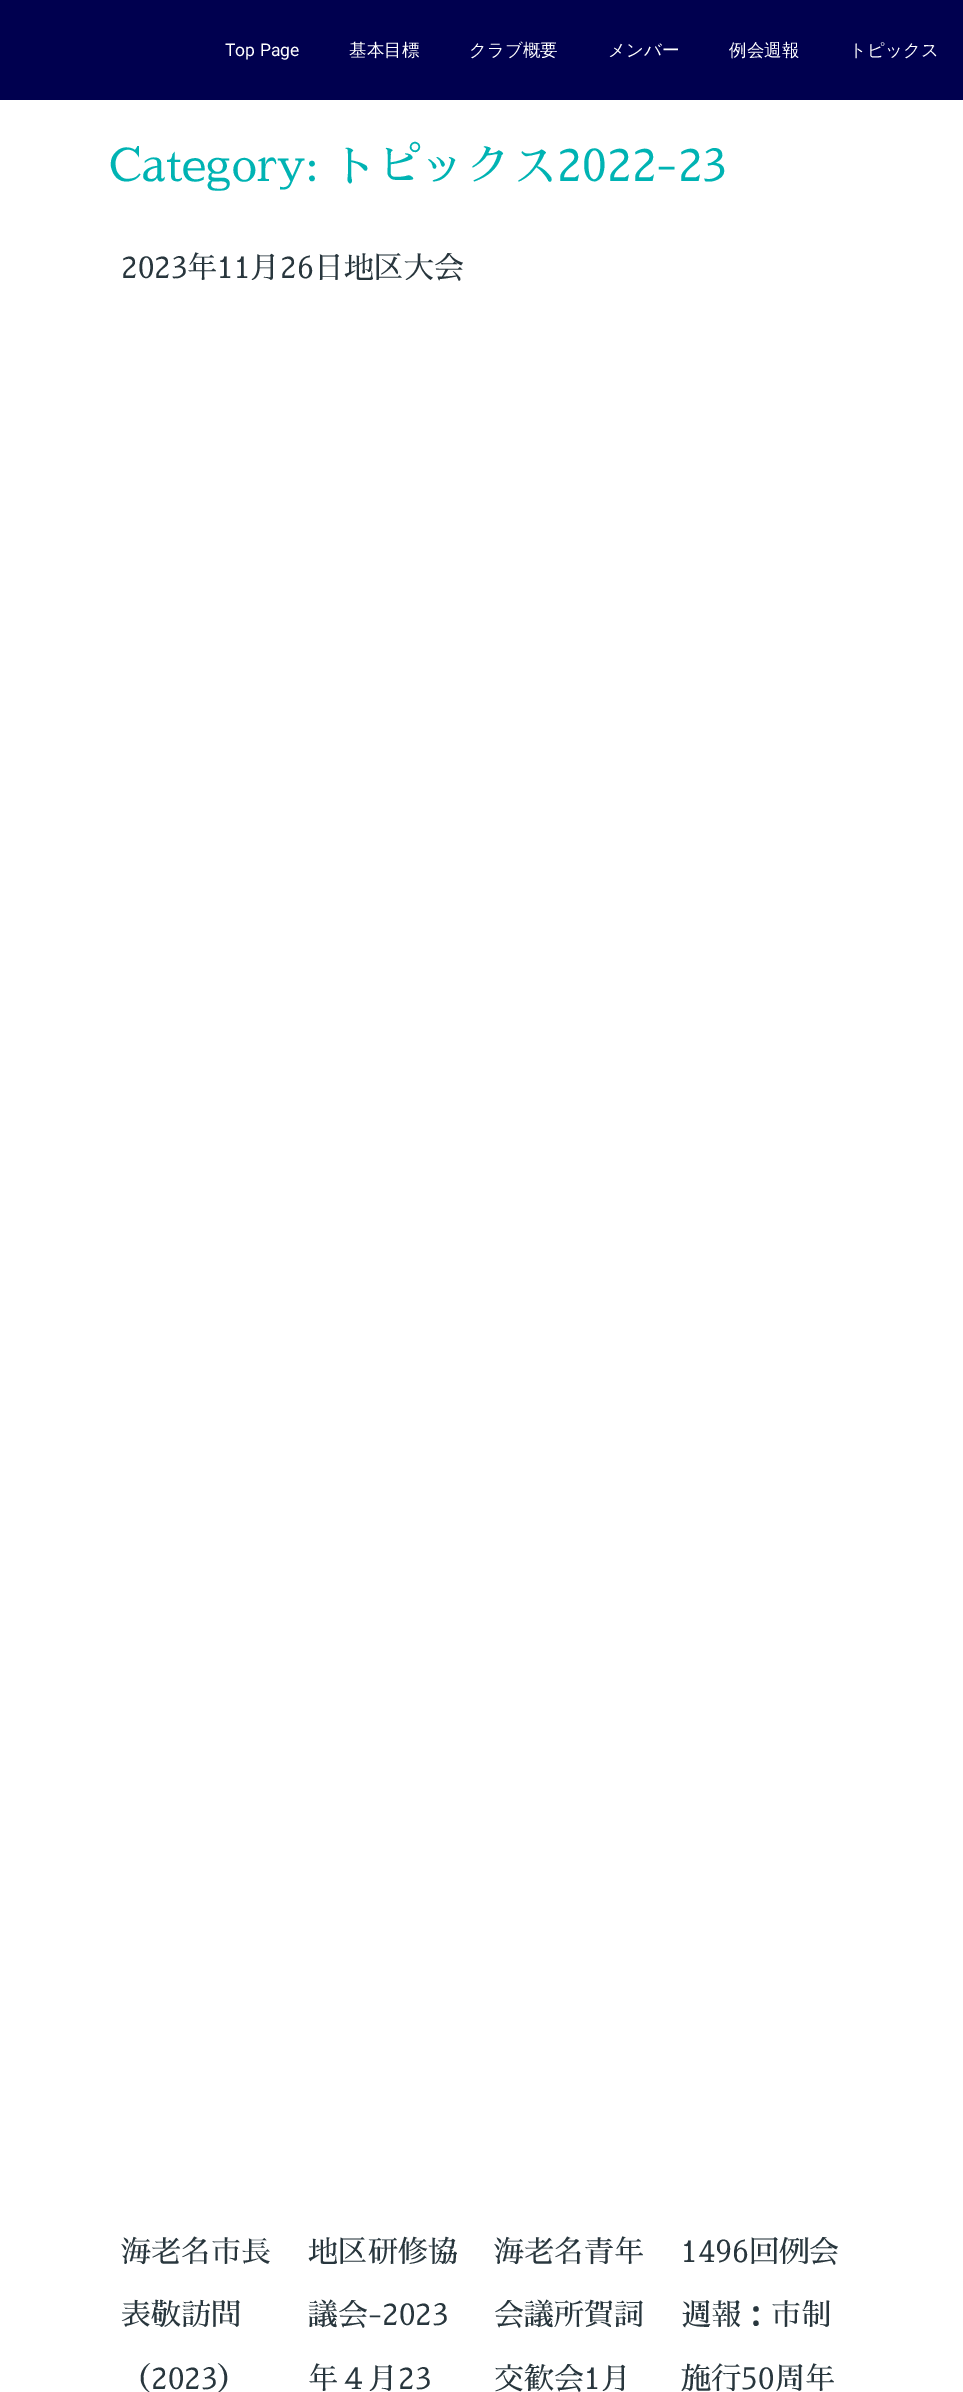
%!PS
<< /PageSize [963 2392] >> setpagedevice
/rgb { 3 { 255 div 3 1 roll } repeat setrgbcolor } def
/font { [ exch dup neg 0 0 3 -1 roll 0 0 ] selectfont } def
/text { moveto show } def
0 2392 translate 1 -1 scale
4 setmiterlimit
255 255 255 rgb
0 0 963 2392 rectfill
0 0 79 rgb
0 0 963 100 rectfill
/Roboto-Regular 17.5 font
255 255 255 rgb
(Top Page) 225 56 text
/WenQuanYiZenHei-Medium 17.5 font
(基本目標) 349 56 text
(クラブ概要) 469 56 text
(メンバー) 608 56 text
(例会週報) 729 56 text
(トピックス) 849 56 text
/SawarabiMincho-Regular 45 font
0 179 179 rgb
(Category: トピックス2022-23) 109 181 text
/SawarabiMincho-Regular 30 font
40 54 61 rgb
(2023年11月26日地区大会) 121 278 text
(海老名市長) 121 2262 text
(表敬訪問) 121 2325 text
(（2023）) 121 2389 text
(地区研修協) 308 2262 text
(議会-2023) 308 2325 text
(年４月23) 308 2389 text
(海老名青年) 494 2262 text
(会議所賀詞) 494 2325 text
(交歓会1月) 494 2389 text
(1496回例会) 681 2262 text
(週報：市制) 681 2325 text
(施行50周年) 681 2389 text
showpage
